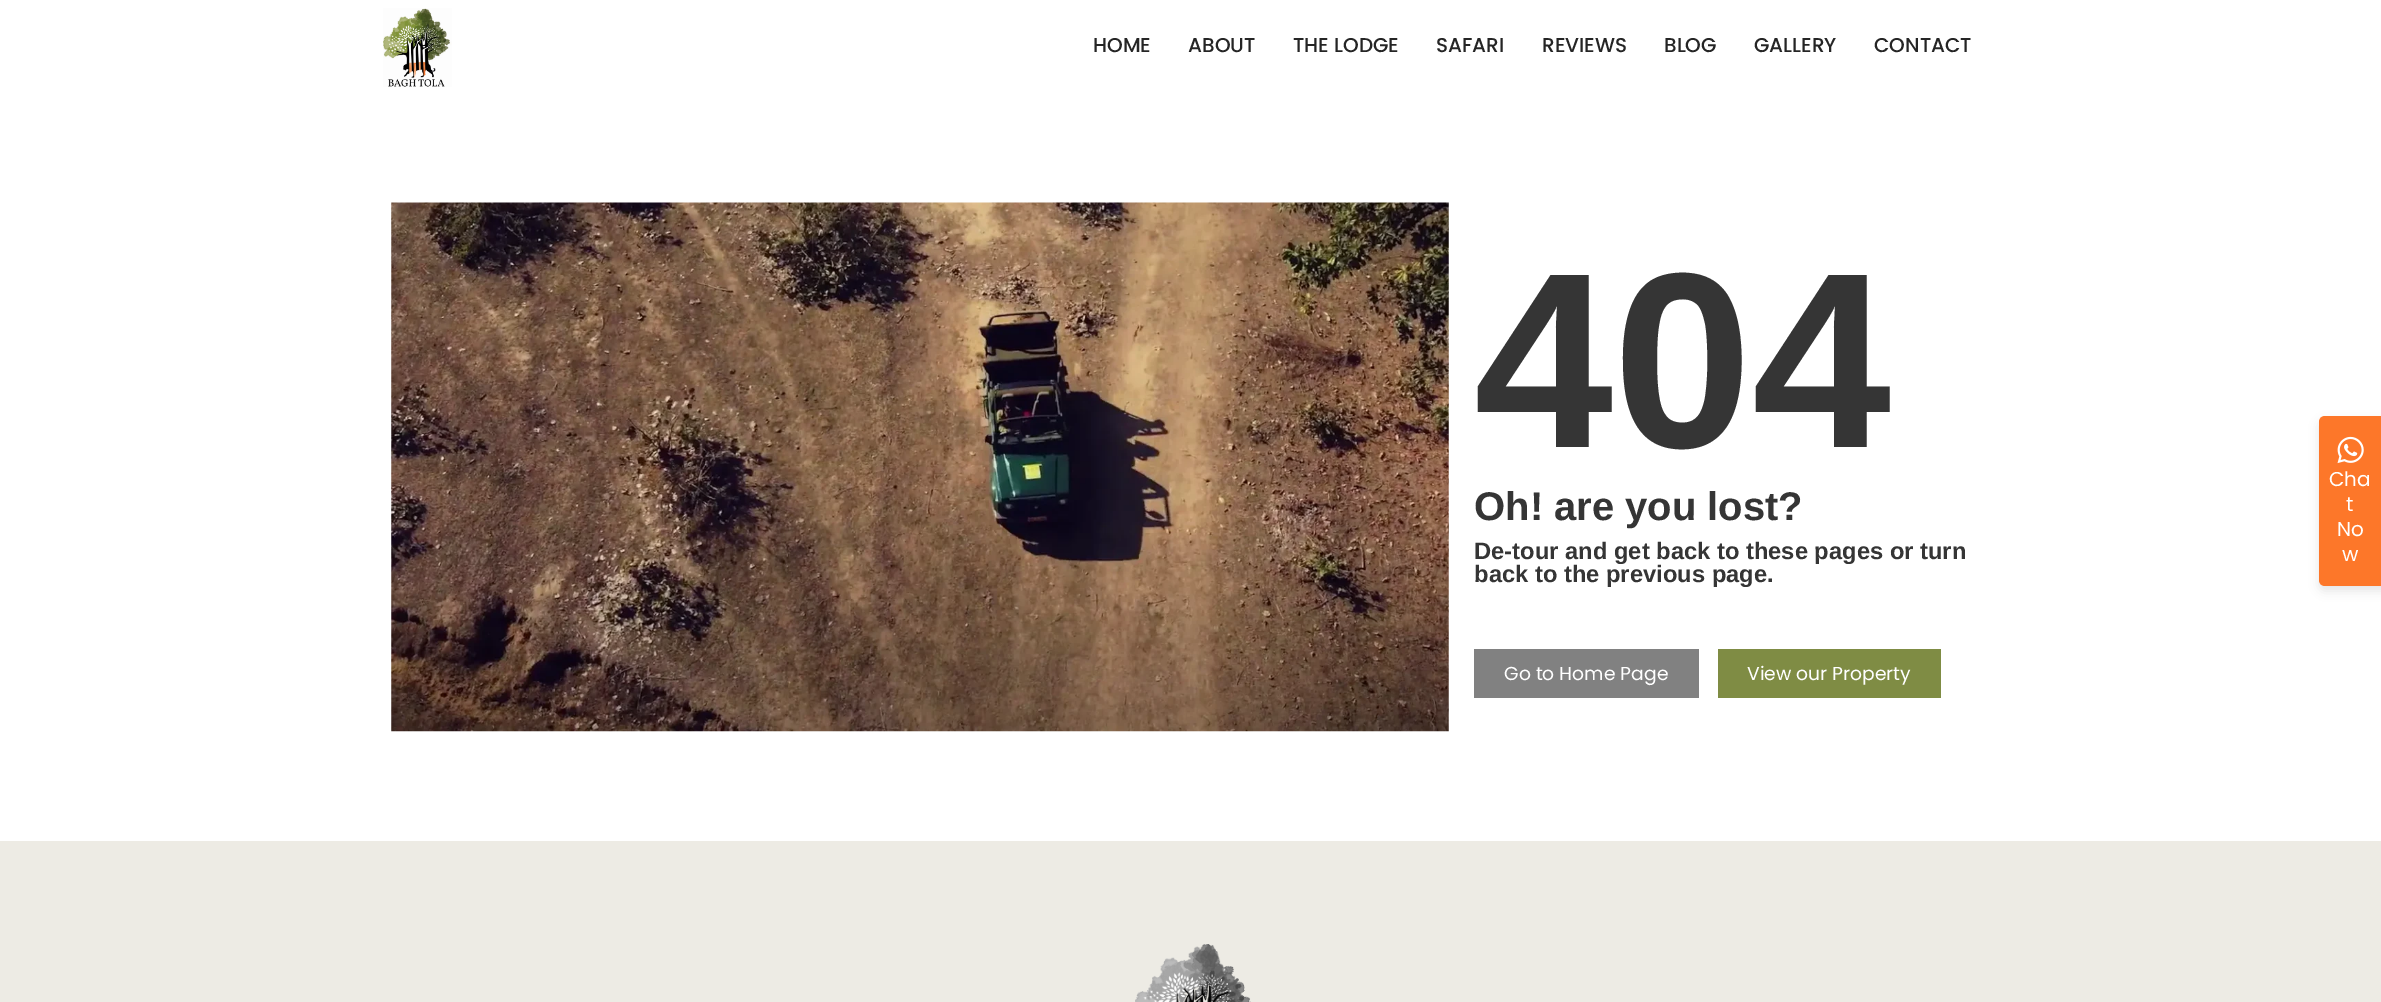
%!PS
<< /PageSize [2381 1002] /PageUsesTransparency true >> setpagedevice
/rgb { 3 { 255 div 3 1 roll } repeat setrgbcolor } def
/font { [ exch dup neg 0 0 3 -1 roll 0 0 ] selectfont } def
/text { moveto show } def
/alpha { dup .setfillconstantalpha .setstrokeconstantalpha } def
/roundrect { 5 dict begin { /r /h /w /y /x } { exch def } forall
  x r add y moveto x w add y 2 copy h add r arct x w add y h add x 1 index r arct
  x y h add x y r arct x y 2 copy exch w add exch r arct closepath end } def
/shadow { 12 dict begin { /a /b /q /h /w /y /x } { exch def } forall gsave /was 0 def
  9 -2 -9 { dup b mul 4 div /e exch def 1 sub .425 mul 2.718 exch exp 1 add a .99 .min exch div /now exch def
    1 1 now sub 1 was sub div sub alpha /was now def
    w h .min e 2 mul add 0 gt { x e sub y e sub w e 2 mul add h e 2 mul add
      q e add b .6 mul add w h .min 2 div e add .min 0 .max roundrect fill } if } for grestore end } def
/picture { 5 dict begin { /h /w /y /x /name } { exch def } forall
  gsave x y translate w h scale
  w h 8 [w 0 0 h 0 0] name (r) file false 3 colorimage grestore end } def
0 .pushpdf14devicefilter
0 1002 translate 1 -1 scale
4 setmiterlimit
255 255 255 rgb
0 0 2381 1002 rectfill
(img_01.rgb) 383 8 69 79 picture
0 0 0 rgb
2319 421 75 170 6 5 0.1 shadow
253 119 41 rgb
2325 416 moveto 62 0 rlineto 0 170 rlineto -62 0 rlineto -3.5 0 -6 -2.5 -6 -6 rcurveto 0 -158 rlineto 0 -3.5 2.5 -6 6 -6 rcurveto closepath fill
(img_02.rgb) 2337 436 27 28 picture
(img_03.rgb) 391 202 1058 530 picture
129 129 129 rgb
1474 649 225 49 rectfill
127 140 68 rgb
1718 649 223 49 rectfill
237 235 228 rgb
0 841 2381 161 rectfill
(img_04.rgb) 1135 944 116 58 picture
/Poppins-Medium 20 font
37 37 37 rgb
(HOME) 1093 52 text
(ABOUT) 1188 52 text
(THE LODGE) 1293 52 text
(SAFARI) 1436 52 text
(REVIEWS) 1542 52 text
(BLOG) 1664 52 text
(GALLERY) 1754 52 text
(CONTACT) 1874 52 text
/Poppins-Regular 20 font
255 255 255 rgb
(Cha) 2329 486 text
(t) 2346 511 text
(No) 2337 536 text
(w) 2342 561 text
/LiberationSans-Bold 250 font
53 53 53 rgb
(404) 1474 447 text
/LiberationSans-Bold 40 font
(Oh! are you lost?) 1474 520 text
/LiberationSans-Bold 23.75 font
(De-tour and get back to these pages or turn) 1474 559 text
(back to the previous page.) 1474 582 text
/Poppins-Regular 18.75 font
255 255 255 rgb
(Go to Home Page) 1504 680 text
(View our Property) 1747 680 text
.poppdf14devicefilter showpage
